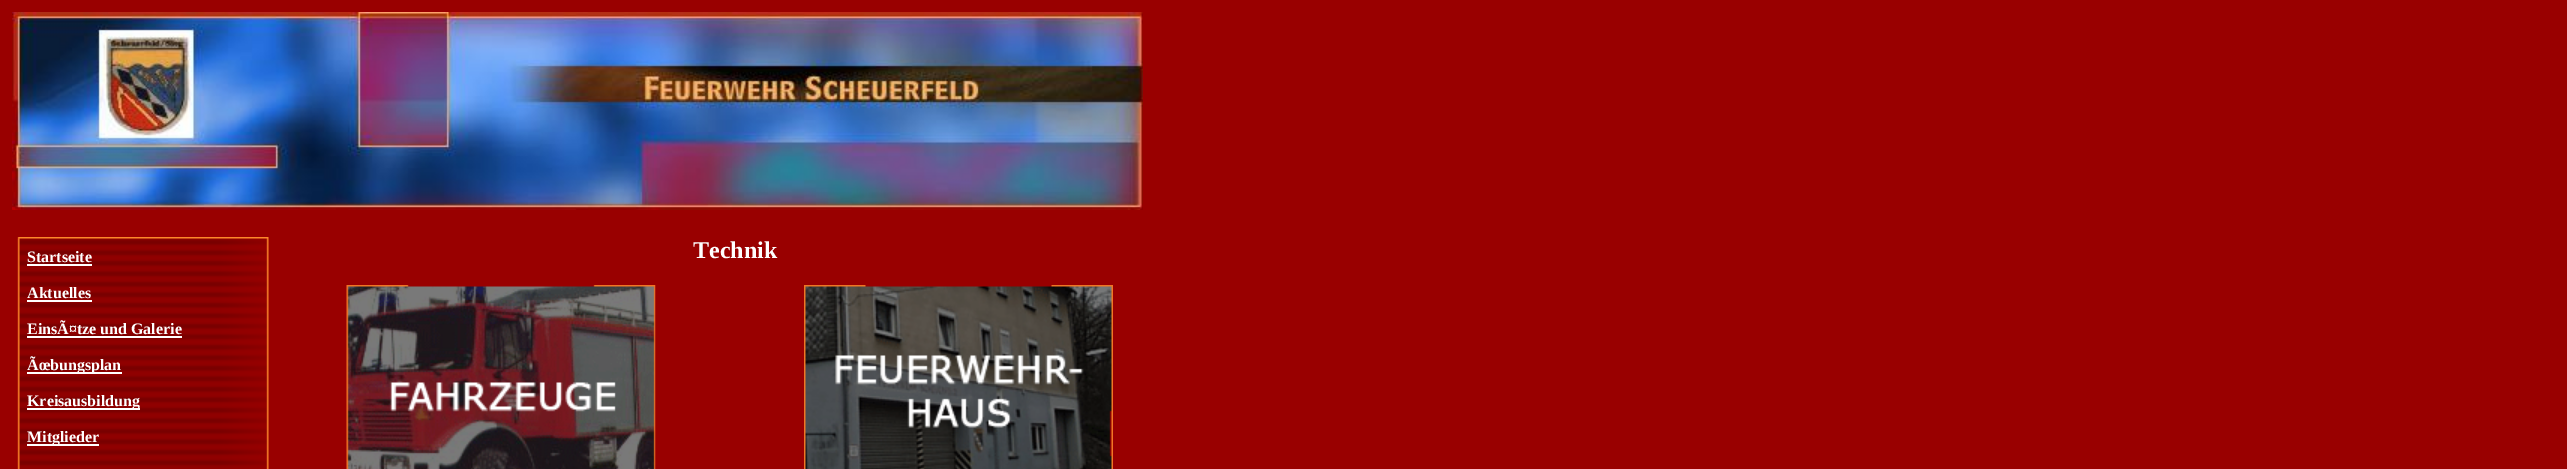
%!PS
<< /PageSize [2567 469] >> setpagedevice
/rgb { 3 { 255 div 3 1 roll } repeat setrgbcolor } def
/font { [ exch dup neg 0 0 3 -1 roll 0 0 ] selectfont } def
/text { moveto show } def
/picture { 5 dict begin { /h /w /y /x /name } { exch def } forall
  gsave x y translate w h scale
  w h 8 [w 0 0 h 0 0] name (r) file false 3 colorimage grestore end } def
0 469 translate 1 -1 scale
4 setmiterlimit
153 0 0 rgb
0 0 2567 469 rectfill
(img_01.rgb) 12 12 1131 198 picture
(img_02.rgb) 17 237 252 232 picture
(img_03.rgb) 17 237 251 2 picture
255 255 255 rgb
27 264 65 2 rectfill
27 300 65 2 rectfill
27 336 155 2 rectfill
27 372 95 2 rectfill
27 408 113 2 rectfill
27 444 72 2 rectfill
(img_04.rgb) 346 285 309 184 picture
176 29 9 rgb
655 285 1 184 rectfill
(img_05.rgb) 804 285 309 184 picture
/LiberationSerif-Bold 16 font
255 255 255 rgb
(Startseite) 27 262 text
(Aktuelles) 27 298 text
(EinsÃ¤tze und Galerie) 27 334 text
(Ãœbungsplan) 27 370 text
(Kreisausbildung) 27 406 text
(Mitglieder) 27 442 text
/LiberationSerif-Bold 24 font
(Technik) 693 258 text
showpage
